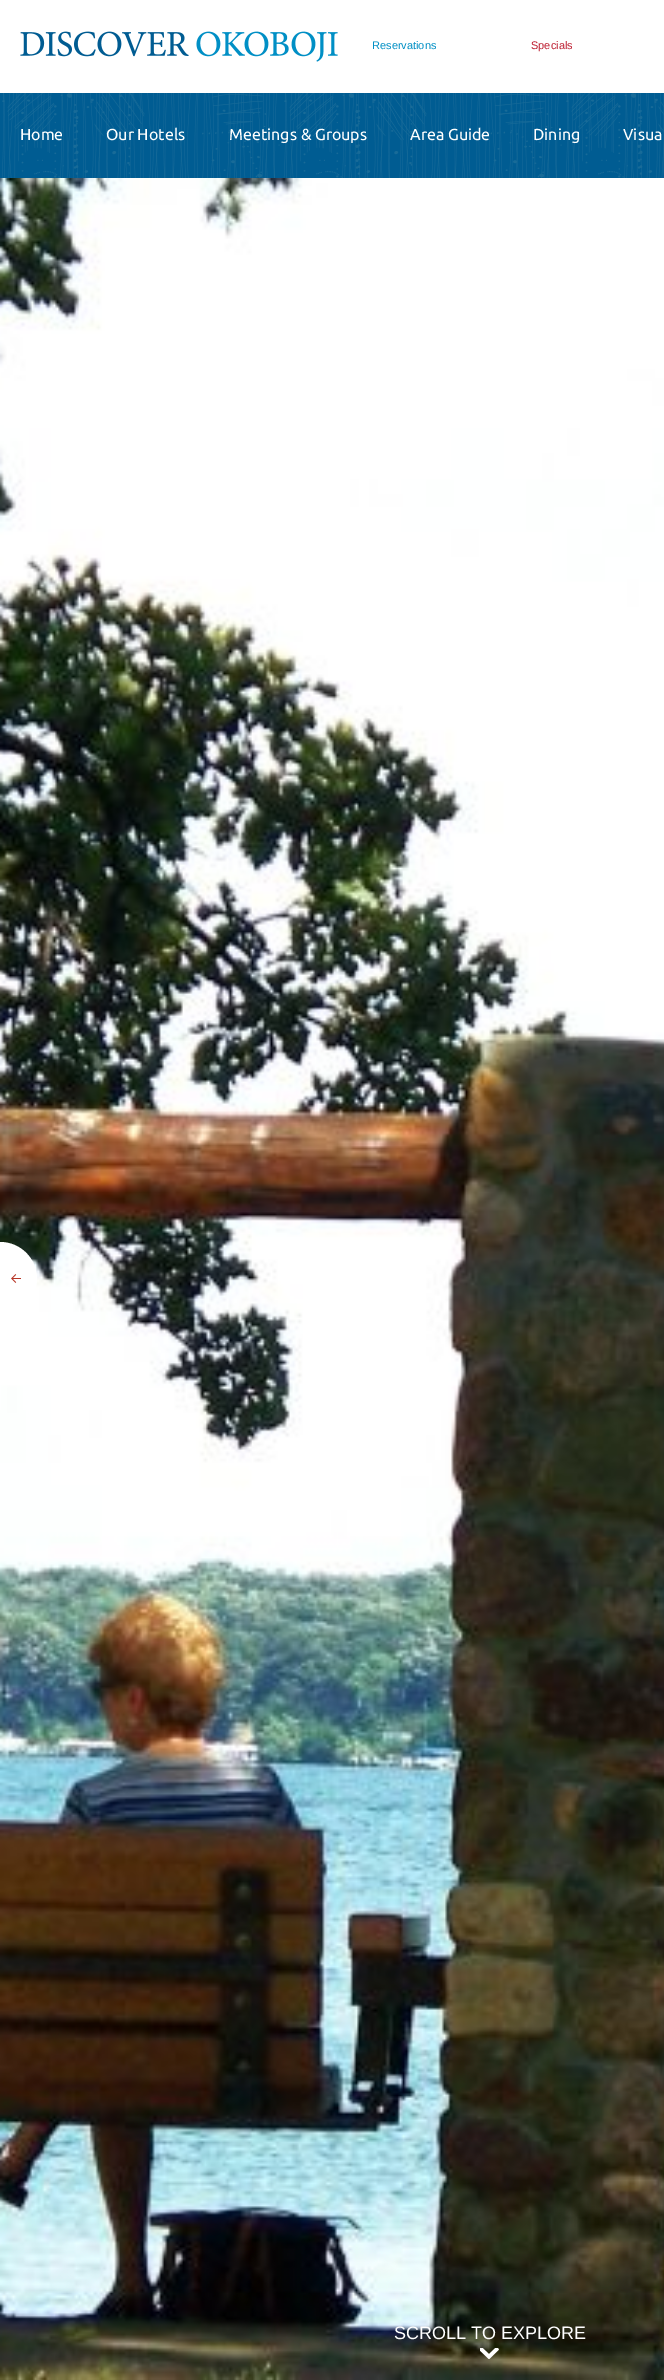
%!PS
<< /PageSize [664 2380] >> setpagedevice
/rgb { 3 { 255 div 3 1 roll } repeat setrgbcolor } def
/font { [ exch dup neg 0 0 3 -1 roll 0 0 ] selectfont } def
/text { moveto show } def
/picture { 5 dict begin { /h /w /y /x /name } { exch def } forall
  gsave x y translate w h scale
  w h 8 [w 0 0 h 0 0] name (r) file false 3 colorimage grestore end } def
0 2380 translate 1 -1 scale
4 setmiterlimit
255 255 255 rgb
0 0 664 2380 rectfill
(img_01.rgb) 20 31 318 31 picture
0 92 146 rgb
0 93 664 85 rectfill
(img_02.rgb) 2 93 662 85 picture
(img_03.rgb) 0 178 664 2202 picture
255 255 255 rgb
0 1242 moveto 20.5 0 37 16.5 37 37 rcurveto 0 20.5 -16.5 37 -37 37 rcurveto closepath fill
(img_04.rgb) 11 1274 10 9 picture
(img_05.rgb) 480 2348 19 11 picture
/LiberationSans-Regular 11 font
0 143 197 rgb
(Reservations) 372 49 text
190 31 50 rgb
(Specials) 531 49 text
/Ubuntu-Regular 16 font
255 255 255 rgb
(Home) 20 140 text
(Our Hotels) 106 140 text
(Meetings & Groups) 229 140 text
(Area Guide) 410 140 text
(Dining) 533 140 text
(Visua) 623 140 text
/LiberationSans-Regular 18 font
(SCROLL TO EXPLORE) 394 2339 text
showpage
